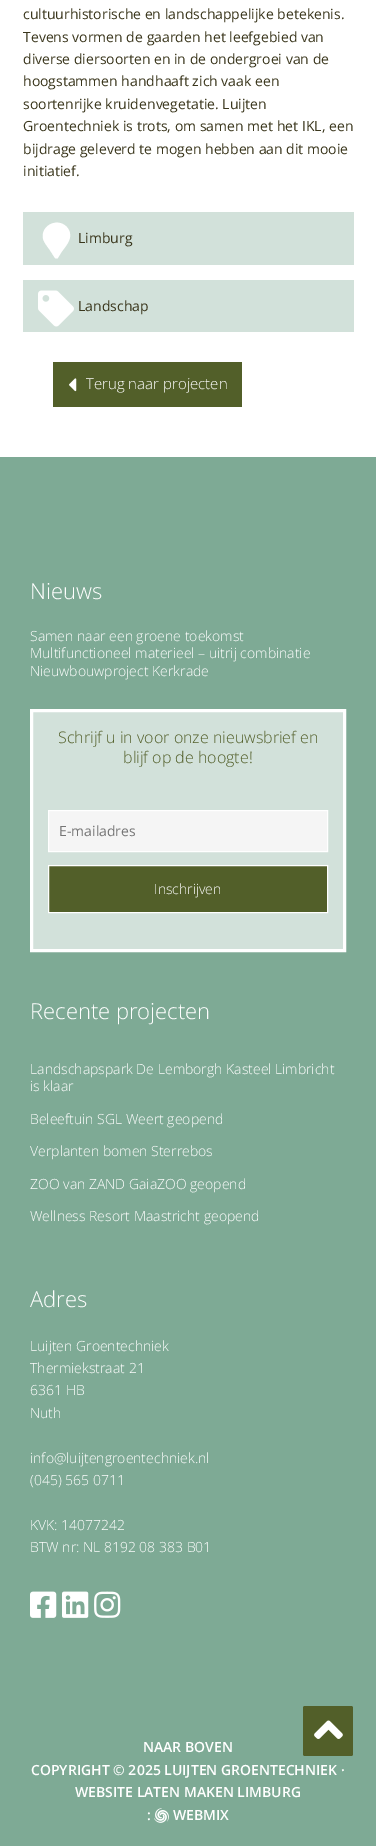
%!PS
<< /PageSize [376 1846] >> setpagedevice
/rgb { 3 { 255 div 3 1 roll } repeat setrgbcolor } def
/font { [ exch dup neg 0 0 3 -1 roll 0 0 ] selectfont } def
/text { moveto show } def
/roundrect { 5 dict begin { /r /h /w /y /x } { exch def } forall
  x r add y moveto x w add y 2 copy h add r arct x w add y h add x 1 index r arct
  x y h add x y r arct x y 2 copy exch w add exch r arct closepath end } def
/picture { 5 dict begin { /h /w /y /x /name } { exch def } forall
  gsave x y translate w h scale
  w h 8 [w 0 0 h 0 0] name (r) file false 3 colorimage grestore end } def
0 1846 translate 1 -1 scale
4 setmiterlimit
255 255 255 rgb
0 0 376 1846 rectfill
210 225 218 rgb
23 212 331 53 rectfill
255 255 255 rgb
55 258 moveto -5.5 -8.5 rlineto -2.5 -3.5 -5.5 -7 -6.5 -11 rcurveto -2.5 -14 16.5 -22 25 -10 rcurveto 6 9 -1.5 16.5 -6.5 23.5 rcurveto -4 6.5 rlineto -1 0 -2 0 -2.5 -0.5 rcurveto closepath fill
210 225 218 rgb
23 280 331 52 rectfill
(img_01.rgb) 38 290 36 37 picture
82 95 41 rgb
53 362 189 45 rectfill
(img_02.rgb) 69 378 8 14 picture
126 170 149 rgb
0 457 376 1389 rectfill
210 225 218 rgb
31.5 710.5 moveto 313 0 rlineto 0 240 rlineto -313 0 rlineto closepath gsave fill grestore
255 255 255 rgb
3 setlinewidth
stroke
245 245 245 rgb
48.5 810.5 moveto 279 0 rlineto 0 41 rlineto -279 0 rlineto closepath gsave fill grestore
255 255 255 rgb
1 setlinewidth
stroke
82 95 41 rgb
48.5 865.5 moveto 279 0 rlineto 0 47 rlineto -279 0 rlineto closepath gsave fill grestore
255 255 255 rgb
stroke
(img_03.rgb) 30 1591 27 27 picture
(img_04.rgb) 62 1591 27 27 picture
(img_05.rgb) 94 1591 27 27 picture
82 95 41 rgb
303 1706 50 50 2 roundrect fill
(img_06.rgb) 314 1720 29 19 picture
(img_07.rgb) 154 1808 15 15 picture
/OpenSans-Regular 14 font
58 54 28 rgb
(cultuurhistorische en landschappelijke betekenis.) 23 19 text
(Tevens vormen de gaarden het leefgebied van) 23 42 text
(diverse diersoorten en in de ondergroei van de) 23 64 text
(hoogstammen handhaaft zich vaak een) 23 86 text
(soortenrijke kruidenvegetatie. Luijten) 23 109 text
(Groentechniek is trots, om samen met het IKL, een) 23 131 text
(bijdrage geleverd te mogen hebben aan dit mooie) 23 154 text
(initiatief.) 23 176 text
(Limburg) 78 243 text
(Landschap) 78 311 text
/OpenSans-Light 15 font
255 255 255 rgb
(Terug naar projecten) 86 389 text
/OpenSans-Light 22 font
(Nieuws) 30 599 text
/OpenSans-Light 14 font
(Samen naar een groene toekomst) 30 641 text
(Multifunctioneel materieel – uitrij combinatie) 30 658 text
(Nieuwbouwproject Kerkrade) 30 676 text
/OpenSans-Light 16 font
82 95 41 rgb
(Schrijf u in voor onze nieuwsbrief en) 58 743 text
(blijf op de hoogte!) 123 763 text
/OpenSans-Regular 14 font
117 117 117 rgb
(E-mailadres) 59 836 text
/OpenSans-Light 14 font
255 255 255 rgb
(Inschrijven) 154 894 text
/OpenSans-Light 22 font
(Recente projecten) 30 1019 text
/OpenSans-Light 14 font
(Landschapspark De Lemborgh Kasteel Limbricht) 30 1074 text
(is klaar) 30 1091 text
(Beleeftuin SGL Weert geopend) 30 1124 text
(Verplanten bomen Sterrebos) 30 1156 text
(ZOO van ZAND GaiaZOO geopend) 30 1189 text
(Wellness Resort Maastricht geopend) 30 1221 text
/OpenSans-Light 22 font
(Adres) 30 1307 text
/OpenSans-Light 14 font
(Luijten Groentechniek) 30 1351 text
(Thermiekstraat 21) 30 1373 text
(6361 HB) 30 1395 text
(Nuth) 30 1418 text
(info@luijtengroentechniek.nl) 30 1463 text
(\(045\) 565 0711) 30 1485 text
(KVK: 14077242) 30 1530 text
(BTW nr: NL 8192 08 383 B01) 30 1552 text
/OpenSans-SemiBold 14 font
(NAAR BOVEN) 143 1752 text
(COPYRIGHT © 2025 LUIJTEN GROENTECHNIEK ·) 31 1775 text
(WEBSITE LATEN MAKEN LIMBURG) 75 1797 text
(:) 147 1820 text
(WEBMIX) 173 1820 text
showpage
